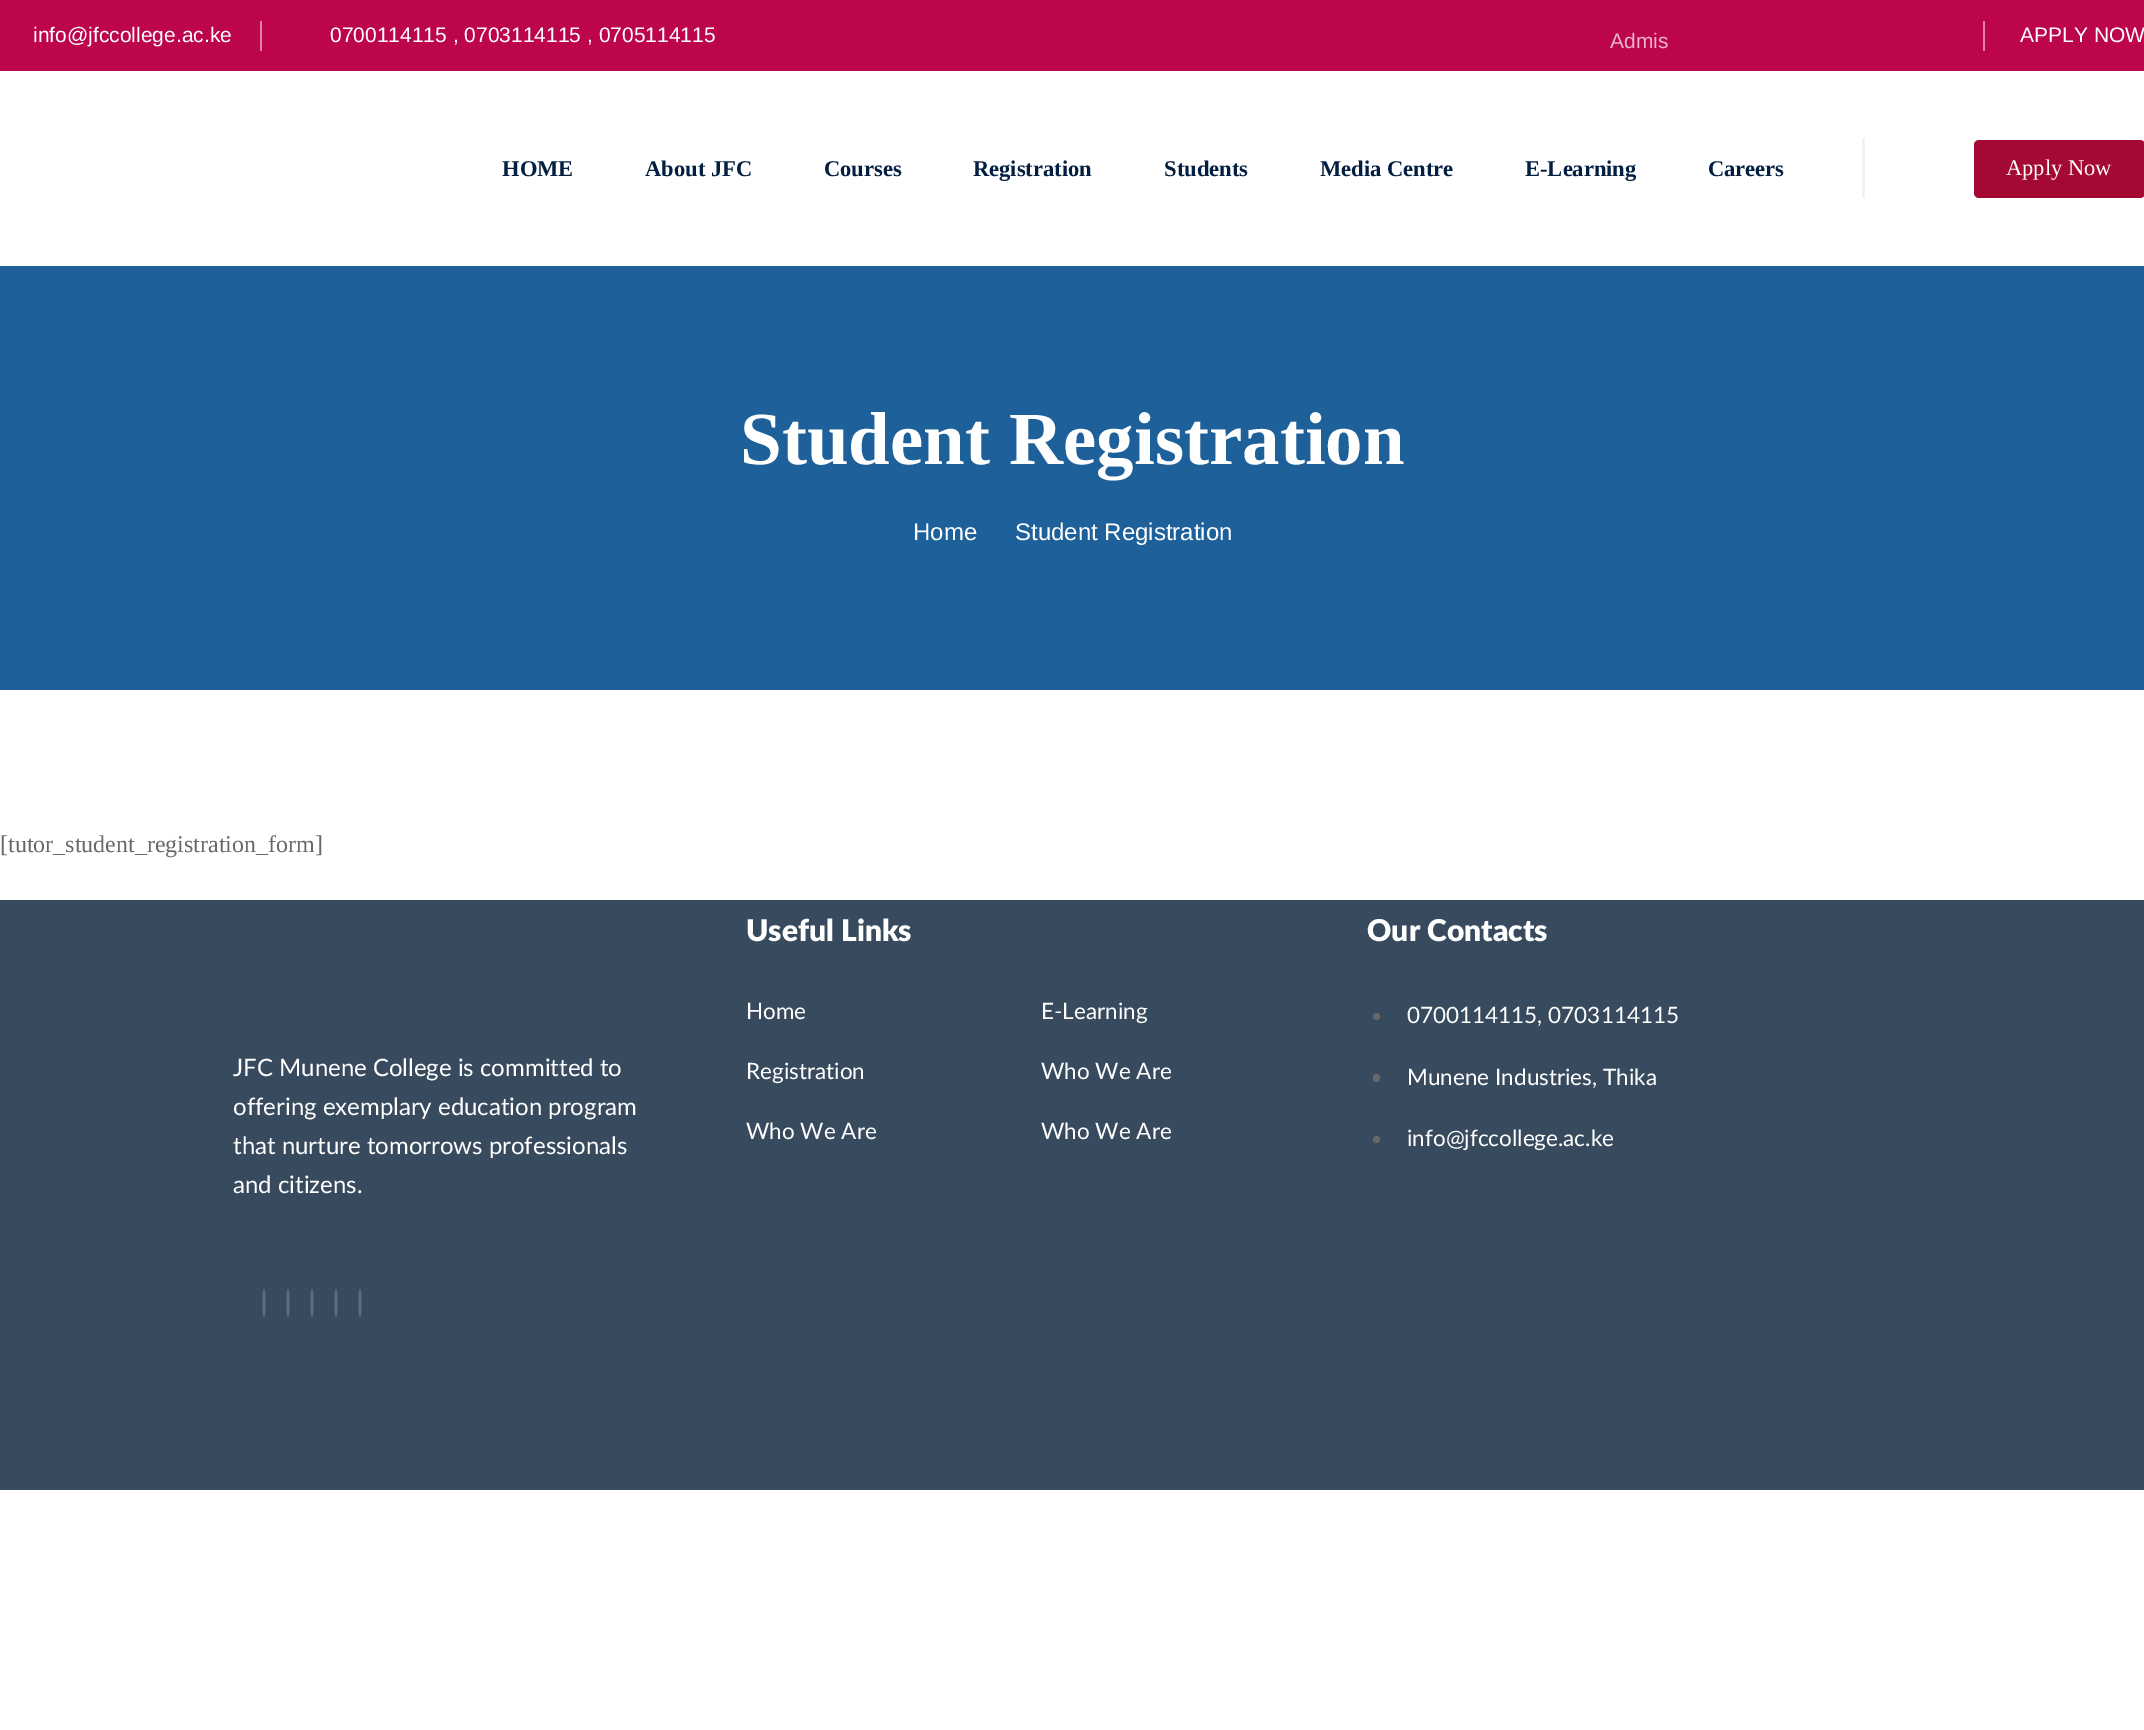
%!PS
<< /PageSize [2144 1730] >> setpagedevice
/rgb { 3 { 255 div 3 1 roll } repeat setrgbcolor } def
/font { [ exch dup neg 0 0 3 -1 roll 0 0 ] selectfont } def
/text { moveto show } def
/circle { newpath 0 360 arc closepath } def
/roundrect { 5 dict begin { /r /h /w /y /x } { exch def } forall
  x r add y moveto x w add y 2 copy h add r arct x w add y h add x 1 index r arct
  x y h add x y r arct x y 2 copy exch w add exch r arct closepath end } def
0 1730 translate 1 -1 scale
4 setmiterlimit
255 255 255 rgb
0 0 2144 1730 rectfill
188 5 77 rgb
0 0 2144 71 rectfill
222 130 166 rgb
260 21 2 30 rectfill
1983 21 2 30 rectfill
243 243 243 rgb
1862 138 3 60 rectfill
163 9 50 rgb
1974 140 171 58 5 roundrect fill
30 96 154 rgb
0 266 2144 424 rectfill
55 74 94 rgb
0 900 2144 590 rectfill
94 109 126 rgb
264 1289 moveto 1 0 1.5 6.5 1.5 14 rcurveto 0 7.5 -0.5 14 -1.5 14 rcurveto -1 0 -1.5 -6.5 -1.5 -14 rcurveto 0 -7.5 0.5 -14 1.5 -14 rcurveto closepath fill
288 1289 moveto 1 0 1.5 6.5 1.5 14 rcurveto 0 7.5 -0.5 14 -1.5 14 rcurveto -1 0 -1.5 -6.5 -1.5 -14 rcurveto 0 -7.5 0.5 -14 1.5 -14 rcurveto closepath fill
312 1289 moveto 1 0 1.5 6.5 1.5 14 rcurveto 0 7.5 -0.5 14 -1.5 14 rcurveto -1 0 -1.5 -6.5 -1.5 -14 rcurveto 0 -7.5 0.5 -14 1.5 -14 rcurveto closepath fill
336 1289 moveto 1 0 1.5 6.5 1.5 14 rcurveto 0 7.5 -0.5 14 -1.5 14 rcurveto -1 0 -1.5 -6.5 -1.5 -14 rcurveto 0 -7.5 0.5 -14 1.5 -14 rcurveto closepath fill
360 1289 moveto 1 0 1.5 6.5 1.5 14 rcurveto 0 7.5 -0.5 14 -1.5 14 rcurveto -1 0 -1.5 -6.5 -1.5 -14 rcurveto 0 -7.5 0.5 -14 1.5 -14 rcurveto closepath fill
105 104 104 rgb
1376.5 1016.5 3.5 circle fill
1373 1074 7 8 3.5 roundrect fill
1376.5 1139.5 3.5 circle fill
/LiberationSans-Regular 21 font
255 255 255 rgb
(info@jfccollege.ac.ke) 33 42 text
(0700114115 , 0703114115 , 0705114115) 330 42 text
235 180 202 rgb
(Admis) 1610 48 text
255 255 255 rgb
(APPLY NOW) 2020 42 text
/LiberationSerif-Bold 22.5 font
2 30 64 rgb
(HOME) 502 176 text
(About JFC) 645 176 text
(Courses) 824 176 text
(Registration) 973 176 text
(Students) 1164 176 text
(Media Centre) 1320 176 text
(E-Learning) 1525 176 text
(Careers) 1708 176 text
/LiberationSerif-Regular 22.5 font
255 255 255 rgb
(Apply Now) 2006 175 text
/LiberationSerif-Bold 75 font
(Student Registration) 740 464 text
/LiberationSans-Regular 24 font
(Home) 913 540 text
(Student Registration) 1015 540 text
/LiberationSerif-Regular 24 font
105 104 104 rgb
([tutor_student_registration_form]) 0 852 text
/Lato-Regular 24 font
255 255 255 rgb
(JFC Munene College is committed to) 233 1076 text
(offering exemplary education program) 233 1115 text
(that nurture tomorrows professionals) 233 1154 text
(and citizens.) 233 1193 text
/Lato-ExtraBold 30 font
(Useful Links) 746 941 text
/Lato-Regular 22.5 font
(Home) 746 1019 text
(Registration) 746 1079 text
(Who We Are) 746 1139 text
(E-Learning) 1041 1019 text
(Who We Are) 1041 1079 text
(Who We Are) 1041 1139 text
/Lato-ExtraBold 30 font
(Our Contacts) 1367 941 text
/Lato-Regular 22.5 font
(0700114115, 0703114115) 1407 1023 text
(Munene Industries, Thika) 1407 1085 text
(info@jfccollege.ac.ke) 1407 1146 text
showpage
